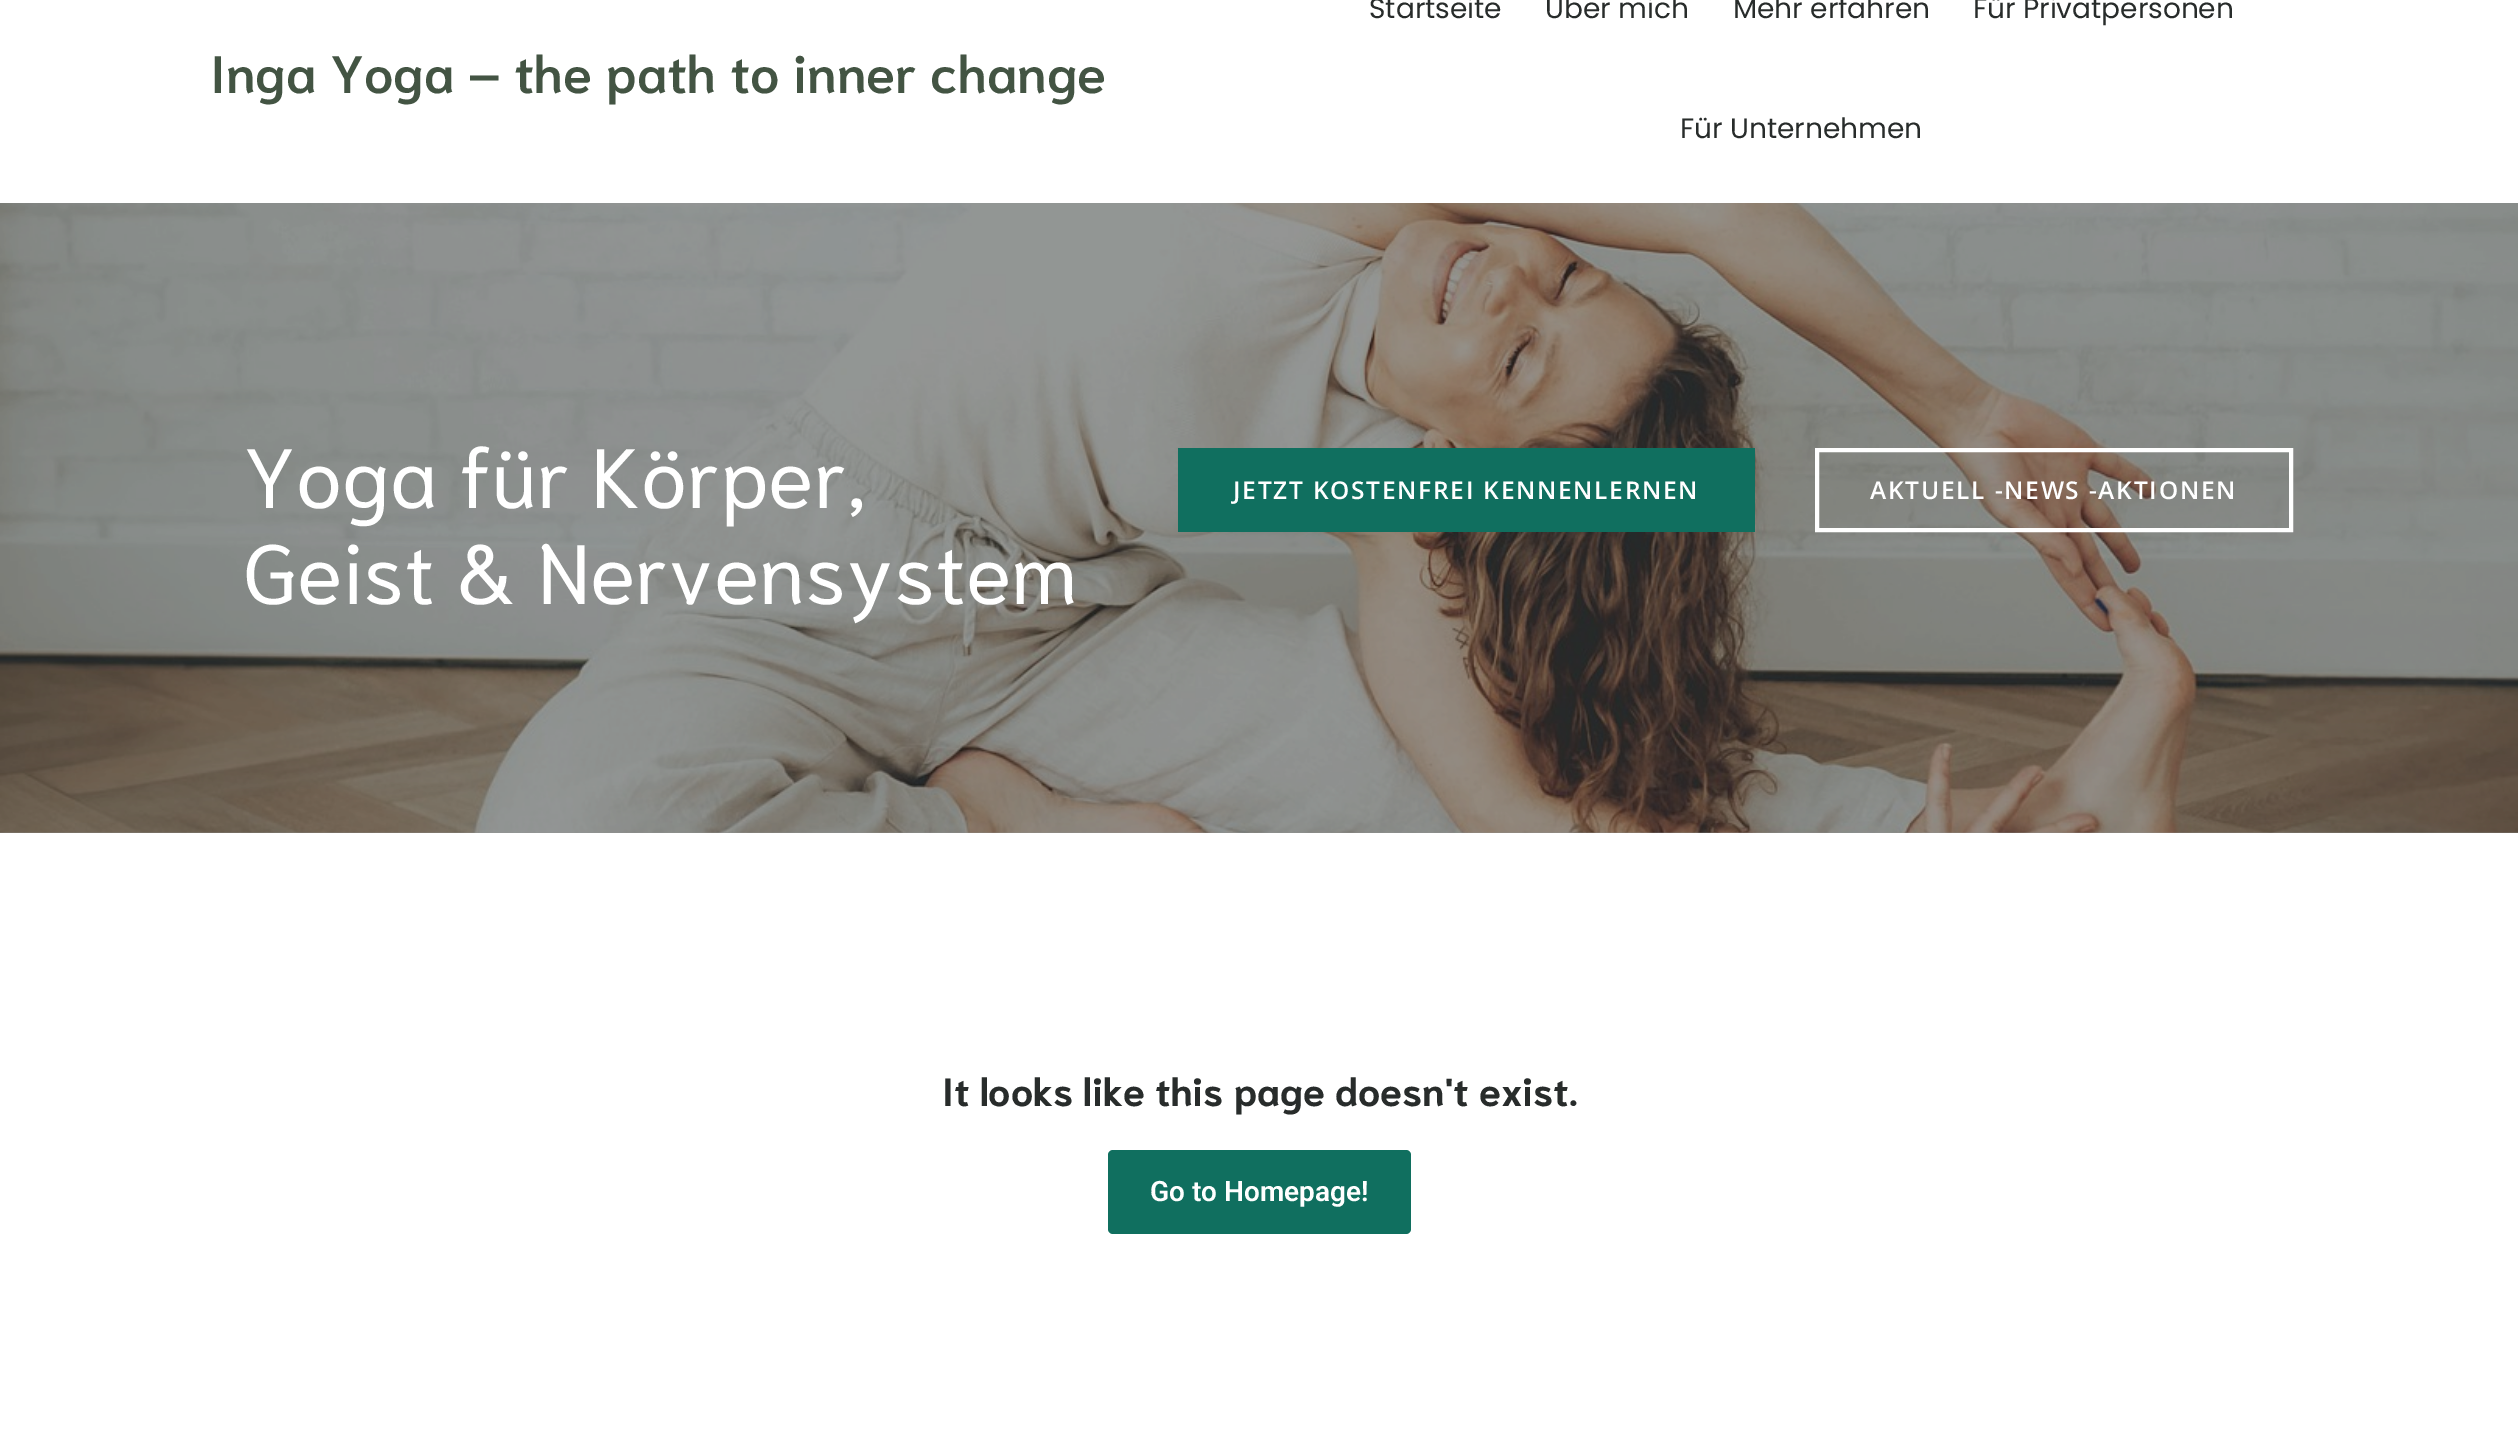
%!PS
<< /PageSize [2518 1440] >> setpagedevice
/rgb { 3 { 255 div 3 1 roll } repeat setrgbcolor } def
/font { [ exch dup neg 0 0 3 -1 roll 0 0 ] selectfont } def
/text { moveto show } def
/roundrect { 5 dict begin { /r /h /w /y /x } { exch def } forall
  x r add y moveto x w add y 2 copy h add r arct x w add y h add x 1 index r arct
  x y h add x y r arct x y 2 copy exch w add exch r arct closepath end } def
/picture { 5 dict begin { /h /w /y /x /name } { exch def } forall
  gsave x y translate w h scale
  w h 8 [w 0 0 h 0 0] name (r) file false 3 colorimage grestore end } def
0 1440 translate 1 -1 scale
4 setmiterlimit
255 255 255 rgb
0 0 2518 1440 rectfill
(img_01.rgb) 0 203 2518 630 picture
16 111 95 rgb
1178 448 577 84 rectfill
255 255 255 rgb
4 setlinewidth
1817 450 474 80 rectstroke
16 111 95 rgb
1108 1150 303 84 5 roundrect fill
/Niramit-SemiBold 52.5 font
67 84 67 rgb
(Inga Yoga – the path to inner change) 210 93 text
/Poppins-Regular 28 font
40 44 43 rgb
(Startseite) 1369 18 text
(Über mich) 1545 18 text
(Mehr erfahren) 1733 18 text
(Für Privatpersonen) 1973 18 text
(Für Unternehmen) 1680 138 text
/Niramit-Regular 84 font
255 255 255 rgb
(Yoga für Körper,) 243 508 text
(Geist & Nervensystem) 243 604 text
/OpenSans-SemiBold 24.5 font
1233 499 moveto 1.75 0 (JETZT KOSTENFREI KENNENLERNEN) ashow
1870 499 moveto 1.75 0 (AKTUELL -NEWS -AKTIONEN) ashow
/Niramit-Bold 39.25 font
40 44 43 rgb
(It looks like this page doesn't exist.) 942 1106 text
/Roboto-SemiBold 28 font
255 255 255 rgb
(Go to Homepage!) 1150 1201 text
showpage
